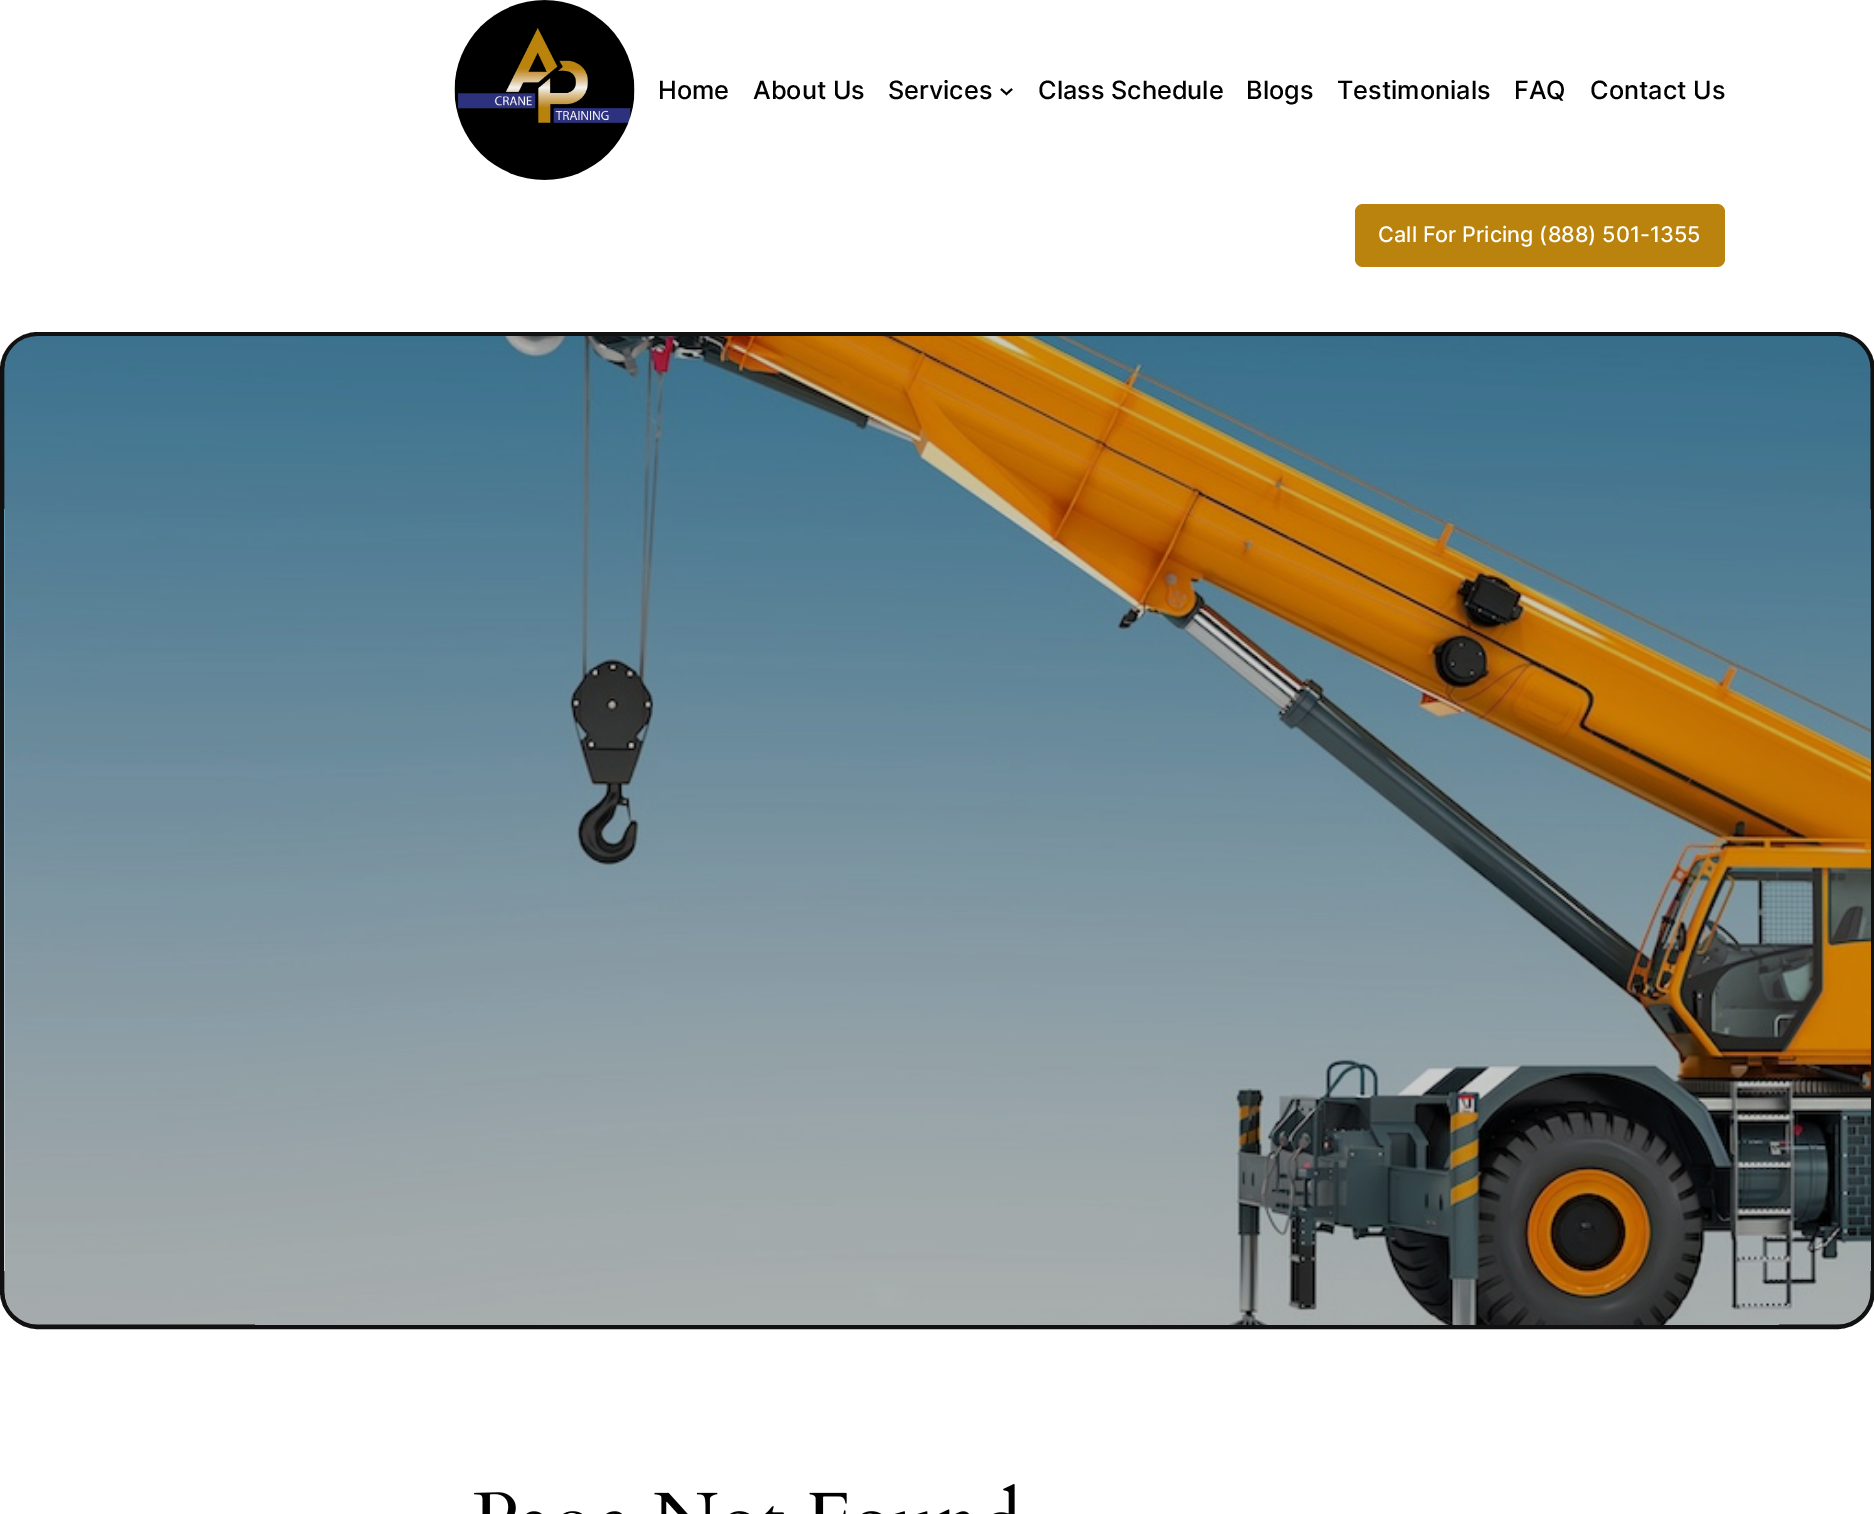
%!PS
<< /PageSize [1874 1514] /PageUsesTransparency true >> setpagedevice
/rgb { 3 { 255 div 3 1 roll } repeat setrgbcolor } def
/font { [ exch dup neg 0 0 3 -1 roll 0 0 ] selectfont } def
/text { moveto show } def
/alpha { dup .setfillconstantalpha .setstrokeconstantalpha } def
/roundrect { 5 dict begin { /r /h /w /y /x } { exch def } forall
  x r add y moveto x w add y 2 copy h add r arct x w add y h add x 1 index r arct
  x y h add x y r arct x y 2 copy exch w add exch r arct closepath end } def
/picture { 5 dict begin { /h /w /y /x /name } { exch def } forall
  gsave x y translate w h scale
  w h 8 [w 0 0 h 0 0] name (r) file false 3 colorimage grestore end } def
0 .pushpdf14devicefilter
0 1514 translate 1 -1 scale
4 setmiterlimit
255 255 255 rgb
0 0 1874 1514 rectfill
(img_01.rgb) 454 0 181 180 picture
0 0 0 rgb
1.9 setlinewidth
1001 89 moveto 5.5 5 rlineto 5.5 -5 rlineto stroke
186 131 13 rgb
1355 204 370 63 8 roundrect fill
17 17 17 rgb
5 setlinewidth
2.5 334.5 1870 992 35.5 roundrect stroke
(img_02.rgb) 4 336 1867 989 picture
0.2 alpha
0 0 0 rgb
5 336 1866 989 33 roundrect fill
1 alpha
(img_03.rgb) 474 1484 541 30 picture
/Inter-Medium 25.25 font
(Home) 658 99 text
(About Us) 753 99 text
(Services) 888 99 text
(Class Schedule) 1038 99 text
(Blogs) 1246 99 text
(Testimonials) 1337 99 text
(FAQ) 1514 99 text
(Contact Us) 1590 99 text
/Inter-Medium 21.6 font
255 255 255 rgb
(Call For Pricing \(888\) 501-1355) 1378 242 text
.poppdf14devicefilter showpage
